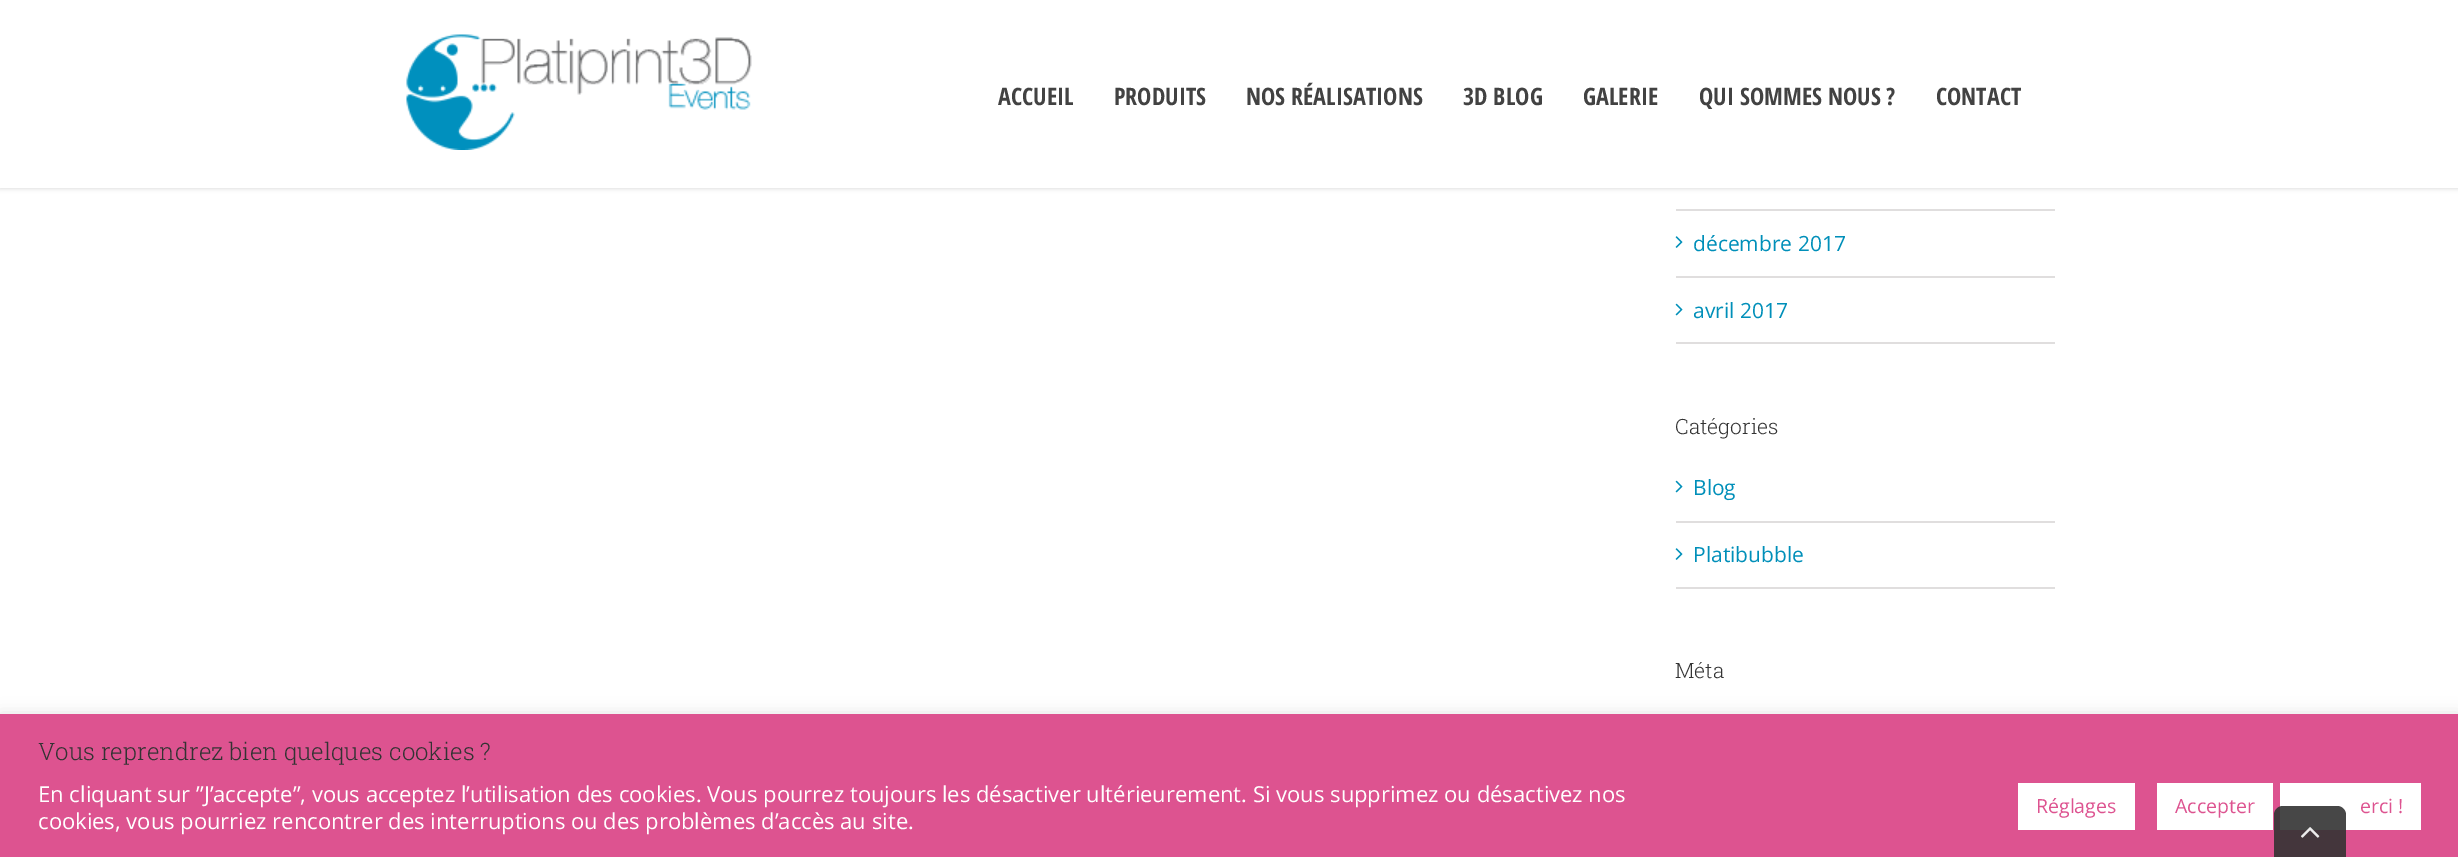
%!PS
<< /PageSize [2458 857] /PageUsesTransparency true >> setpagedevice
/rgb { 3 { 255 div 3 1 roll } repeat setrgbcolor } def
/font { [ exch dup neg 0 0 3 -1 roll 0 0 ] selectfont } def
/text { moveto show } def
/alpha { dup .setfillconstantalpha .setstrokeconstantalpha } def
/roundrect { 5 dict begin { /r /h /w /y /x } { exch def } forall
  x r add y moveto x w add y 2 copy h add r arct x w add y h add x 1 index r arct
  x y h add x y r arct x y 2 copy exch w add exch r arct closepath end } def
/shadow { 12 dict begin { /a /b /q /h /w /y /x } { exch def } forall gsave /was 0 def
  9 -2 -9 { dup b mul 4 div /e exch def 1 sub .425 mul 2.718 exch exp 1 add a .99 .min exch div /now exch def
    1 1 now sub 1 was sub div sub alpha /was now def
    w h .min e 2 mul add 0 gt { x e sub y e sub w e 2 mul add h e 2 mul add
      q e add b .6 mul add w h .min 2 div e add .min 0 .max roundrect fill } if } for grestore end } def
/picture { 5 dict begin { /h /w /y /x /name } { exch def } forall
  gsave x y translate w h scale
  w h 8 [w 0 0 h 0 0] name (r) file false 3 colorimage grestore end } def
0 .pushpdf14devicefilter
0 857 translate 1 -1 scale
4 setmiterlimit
255 255 255 rgb
0 0 2458 857 rectfill
0 0 0 rgb
0 2 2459 187 0 2 0.12 shadow
255 255 255 rgb
0 0 2458 188 rectfill
(img_01.rgb) 406 34 346 116 picture
224 222 222 rgb
1676 209 379 2 rectfill
1676 276 379 2 rectfill
(img_02.rgb) 1675 236 8 12 picture
1676 342 379 2 rectfill
(img_03.rgb) 1675 303 8 13 picture
1676 521 379 2 rectfill
(img_03.rgb) 1675 480 8 13 picture
1676 587 379 2 rectfill
(img_02.rgb) 1675 548 8 12 picture
172 171 171 rgb
0 713 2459 144 0 7.5 0.3 shadow
221 83 144 rgb
0 714 2458 143 rectfill
255 255 255 rgb
2018 783 117 47 rectfill
2157 783 116 47 rectfill
2280 783 141 47 rectfill
0.9 alpha
51 51 51 rgb
2283 806 moveto 54 0 rlineto 5 0 9 4 9 9 rcurveto 0 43 rlineto -72 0 rlineto 0 -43 rlineto 0 -5 4 -9 9 -9 rcurveto closepath fill
1 alpha
(img_04.rgb) 2301 827 19 11 picture
/OpenSansCondensed-Bold 24 font
66 66 66 rgb
(ACCUEIL) 998 105 text
(PRODUITS) 1114 105 text
(NOS RÉALISATIONS) 1246 105 text
(3D BLOG) 1463 105 text
(GALERIE) 1583 105 text
(QUI SOMMES NOUS ?) 1699 105 text
(CONTACT) 1936 105 text
/OpenSans-Regular 21 font
0 143 185 rgb
(décembre 2017) 1693 251 text
(avril 2017) 1693 318 text
/RobotoSlab-Light 21 font
51 51 51 rgb
(Catégories) 1675 434 text
/OpenSans-Regular 21 font
0 143 185 rgb
(Blog) 1693 495 text
(Platibubble) 1693 562 text
/RobotoSlab-Light 21 font
51 51 51 rgb
(Méta) 1675 678 text
/RobotoSlab-Light 24 font
(Vous reprendrez bien quelques cookies ?) 38 760 text
/OpenSans-Regular 22 font
255 255 255 rgb
(En cliquant sur ”J’accepte”, vous acceptez l’utilisation des cookies. Vous pourrez toujours les désactiver ultérieurement. Si vous supprimez ou désactivez nos) 38 802 text
(cookies, vous pourriez rencontrer des interruptions ou des problèmes d’accès au site.) 38 829 text
/OpenSans-Regular 19.5 font
221 83 144 rgb
(Réglages) 2036 813 text
(Accepter) 2175 813 text
(erci !) 2360 813 text
.poppdf14devicefilter showpage
